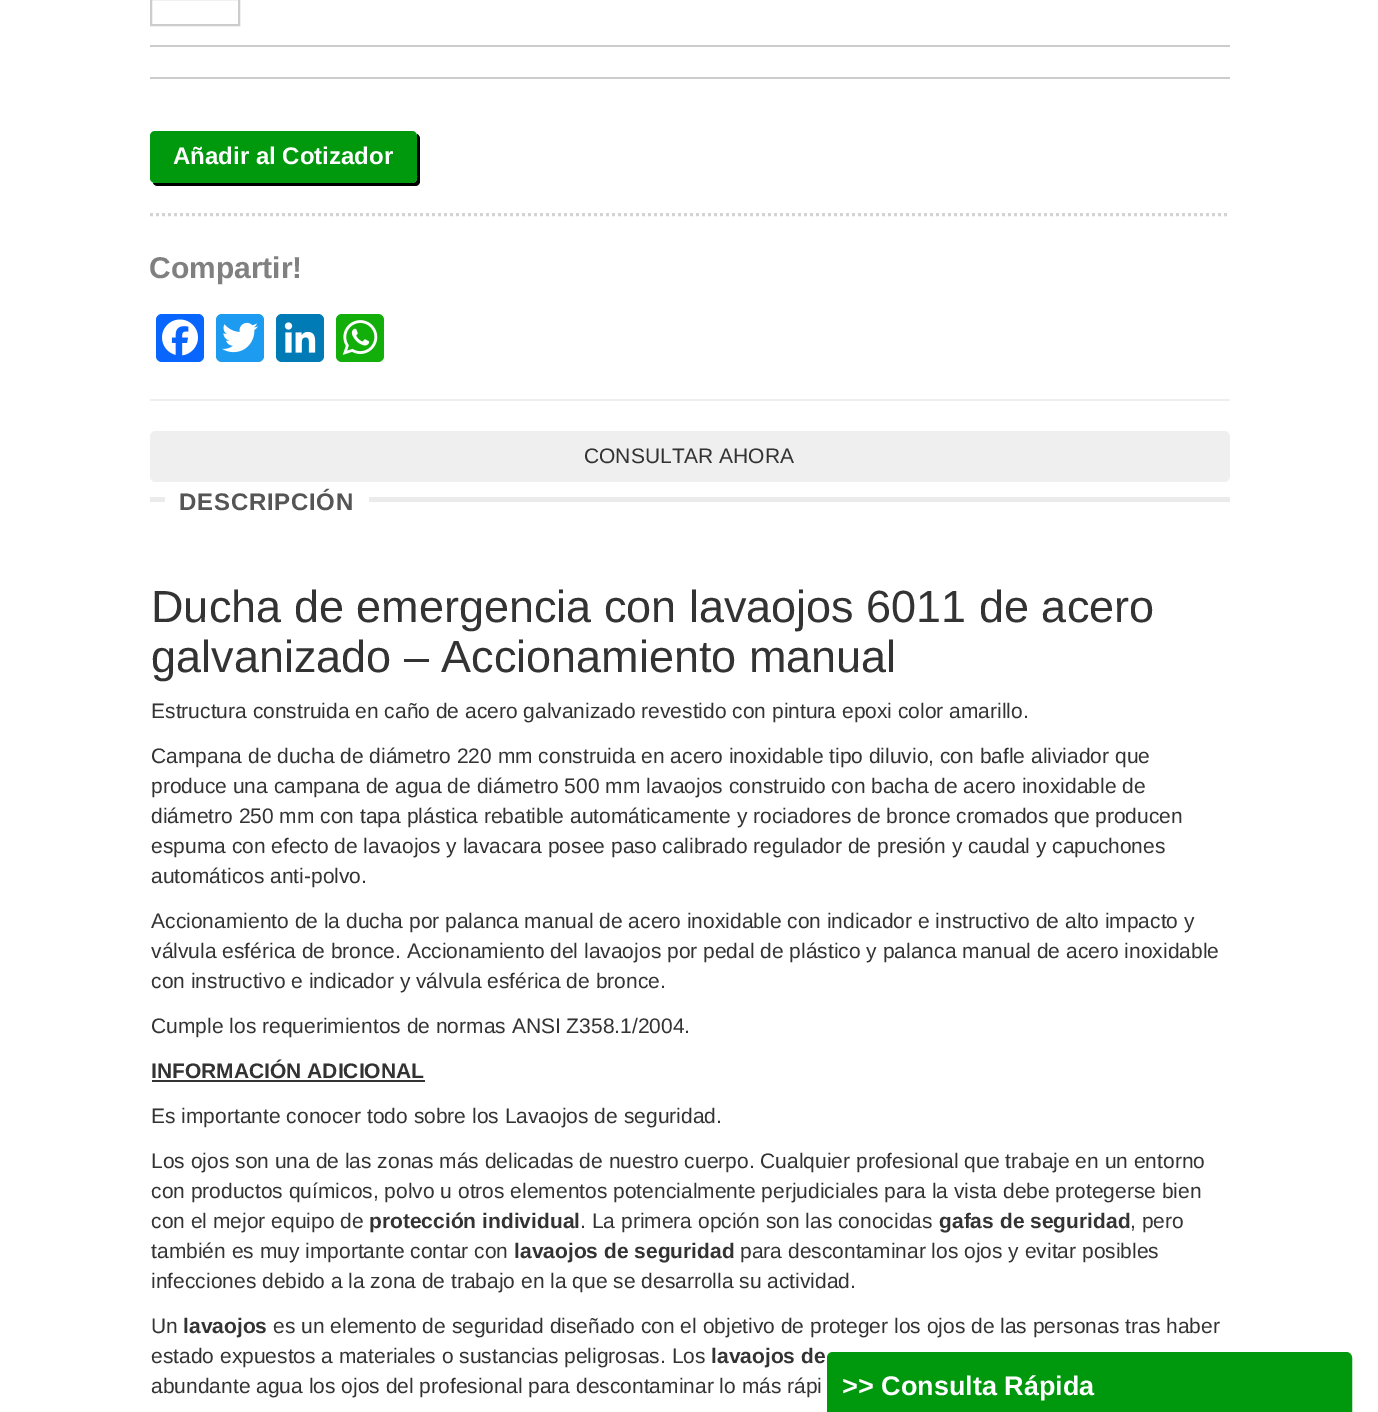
%!PS
<< /PageSize [1378 1412] >> setpagedevice
/rgb { 3 { 255 div 3 1 roll } repeat setrgbcolor } def
/font { [ exch dup neg 0 0 3 -1 roll 0 0 ] selectfont } def
/text { moveto show } def
/roundrect { 5 dict begin { /r /h /w /y /x } { exch def } forall
  x r add y moveto x w add y 2 copy h add r arct x w add y h add x 1 index r arct
  x y h add x y r arct x y 2 copy exch w add exch r arct closepath end } def
/picture { 5 dict begin { /h /w /y /x /name } { exch def } forall
  gsave x y translate w h scale
  w h 8 [w 0 0 h 0 0] name (r) file false 3 colorimage grestore end } def
0 1412 translate 1 -1 scale
4 setmiterlimit
255 255 255 rgb
0 0 1378 1412 rectfill
204 204 204 rgb
2 setlinewidth
151 -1 88 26 rectstroke
150 45 1080 2 rectfill
150 77 1080 2 rectfill
0 0 0 rgb
153 183 moveto 1 2 3 3 5 3 rcurveto 257 0 rlineto 3 0 5 -2 5 -5 rcurveto 0 -42 rlineto 0 -2 -1 -4 -3 -5 rcurveto 0 37 rlineto 0 4 2 12 -5 12 rcurveto closepath fill
0 152 13 rgb
150 131 267 52 5 roundrect fill
211 211 211 rgb
3 setlinewidth
[3 3] 0 setdash
150 214.5 moveto 1080 0 rlineto stroke
8 102 255 rgb
156 314 48 48 6 roundrect fill
(img_01.rgb) 162 319 36 37 picture
29 155 240 rgb
216 314 48 48 6 roundrect fill
(img_02.rgb) 222 322 36 31 picture
0 123 181 rgb
276 314 48 48 6 roundrect fill
(img_03.rgb) 284 322 32 31 picture
18 175 10 rgb
336 314 48 48 6 roundrect fill
(img_04.rgb) 342 320 36 35 picture
238 238 238 rgb
150 399 1080 2 rectfill
239 239 239 rgb
150 431 1080 51 6 roundrect fill
235 235 235 rgb
150 497 1080 5 rectfill
255 255 255 rgb
165 497 204 5 rectfill
51 51 51 rgb
152 1080 273 2 rectfill
0 152 13 rgb
833 1353 moveto 513 0 rlineto 3 0 5 2 5 5 rcurveto 0 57 rlineto -523 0 rlineto 0 -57 rlineto 0 -3 2 -5 5 -5 rcurveto closepath gsave fill grestore
2 setlinewidth
[] 0 setdash
stroke
/LiberationSans-Bold 24 font
255 255 255 rgb
(Añadir al Cotizador) 173 164 text
/LiberationSans-Bold 30 font
128 128 128 rgb
(Compartir!) 149 278 text
/LiberationSans-Regular 21 font
51 51 51 rgb
(CONSULTAR AHORA) 584 463 text
/LiberationSans-Bold 24 font
85 85 85 rgb
179 510 moveto 0.75 0 (DESCRIPCIÓN) ashow
/LiberationSans-Regular 45 font
51 51 51 rgb
(Ducha de emergencia con lavaojos 6011 de acero) 151 622 text
(galvanizado – Accionamiento manual) 151 672 text
/LiberationSans-Regular 21 font
(Estructura construida en caño de acero galvanizado revestido con pintura epoxi color amarillo.) 151 718 text
(Campana de ducha de diámetro 220 mm construida en acero inoxidable tipo diluvio, con bafle aliviador que) 151 763 text
(produce una campana de agua de diámetro 500 mm lavaojos construido con bacha de acero inoxidable de) 151 793 text
(diámetro 250 mm con tapa plástica rebatible automáticamente y rociadores de bronce cromados que producen) 151 823 text
(espuma con efecto de lavaojos y lavacara posee paso calibrado regulador de presión y caudal y capuchones) 151 853 text
(automáticos anti-polvo.) 151 883 text
(Accionamiento de la ducha por palanca manual de acero inoxidable con indicador e instructivo de alto impacto y) 151 928 text
(válvula esférica de bronce. Accionamiento del lavaojos por pedal de plástico y palanca manual de acero inoxidable) 151 958 text
(con instructivo e indicador y válvula esférica de bronce.) 151 988 text
(Cumple los requerimientos de normas ANSI Z358.1/2004.) 151 1033 text
/LiberationSans-Bold 21 font
(INFORMACIÓN ADICIONAL) 151 1078 text
/LiberationSans-Regular 21 font
(Es importante conocer todo sobre los Lavaojos de seguridad.) 151 1123 text
(Los ojos son una de las zonas más delicadas de nuestro cuerpo. Cualquier profesional que trabaje en un entorno) 151 1168 text
(con productos químicos, polvo u otros elementos potencialmente perjudiciales para la vista debe protegerse bien) 151 1198 text
(con el mejor equipo de) 151 1228 text
/LiberationSans-Bold 21 font
(protección individual) 369 1228 text
/LiberationSans-Regular 21 font
(. La primera opción son las conocidas) 580 1228 text
/LiberationSans-Bold 21 font
(gafas de seguridad) 939 1228 text
/LiberationSans-Regular 21 font
(, pero) 1130 1228 text
(también es muy importante contar con) 151 1258 text
/LiberationSans-Bold 21 font
(lavaojos de seguridad) 514 1258 text
/LiberationSans-Regular 21 font
(para descontaminar los ojos y evitar posibles) 740 1258 text
(infecciones debido a la zona de trabajo en la que se desarrolla su actividad.) 151 1288 text
(Un) 151 1333 text
/LiberationSans-Bold 21 font
(lavaojos) 183 1333 text
/LiberationSans-Regular 21 font
(es un elemento de seguridad diseñado con el objetivo de proteger los ojos de las personas tras haber) 273 1333 text
(estado expuestos a materiales o sustancias peligrosas. Los) 151 1363 text
/LiberationSans-Bold 21 font
(lavaojos de) 711 1363 text
/LiberationSans-Regular 21 font
(abundante agua los ojos del profesional para descontaminar lo más rápi) 151 1393 text
/LiberationSans-Bold 27 font
255 255 255 rgb
(>> Consulta Rápida) 842 1395 text
showpage
